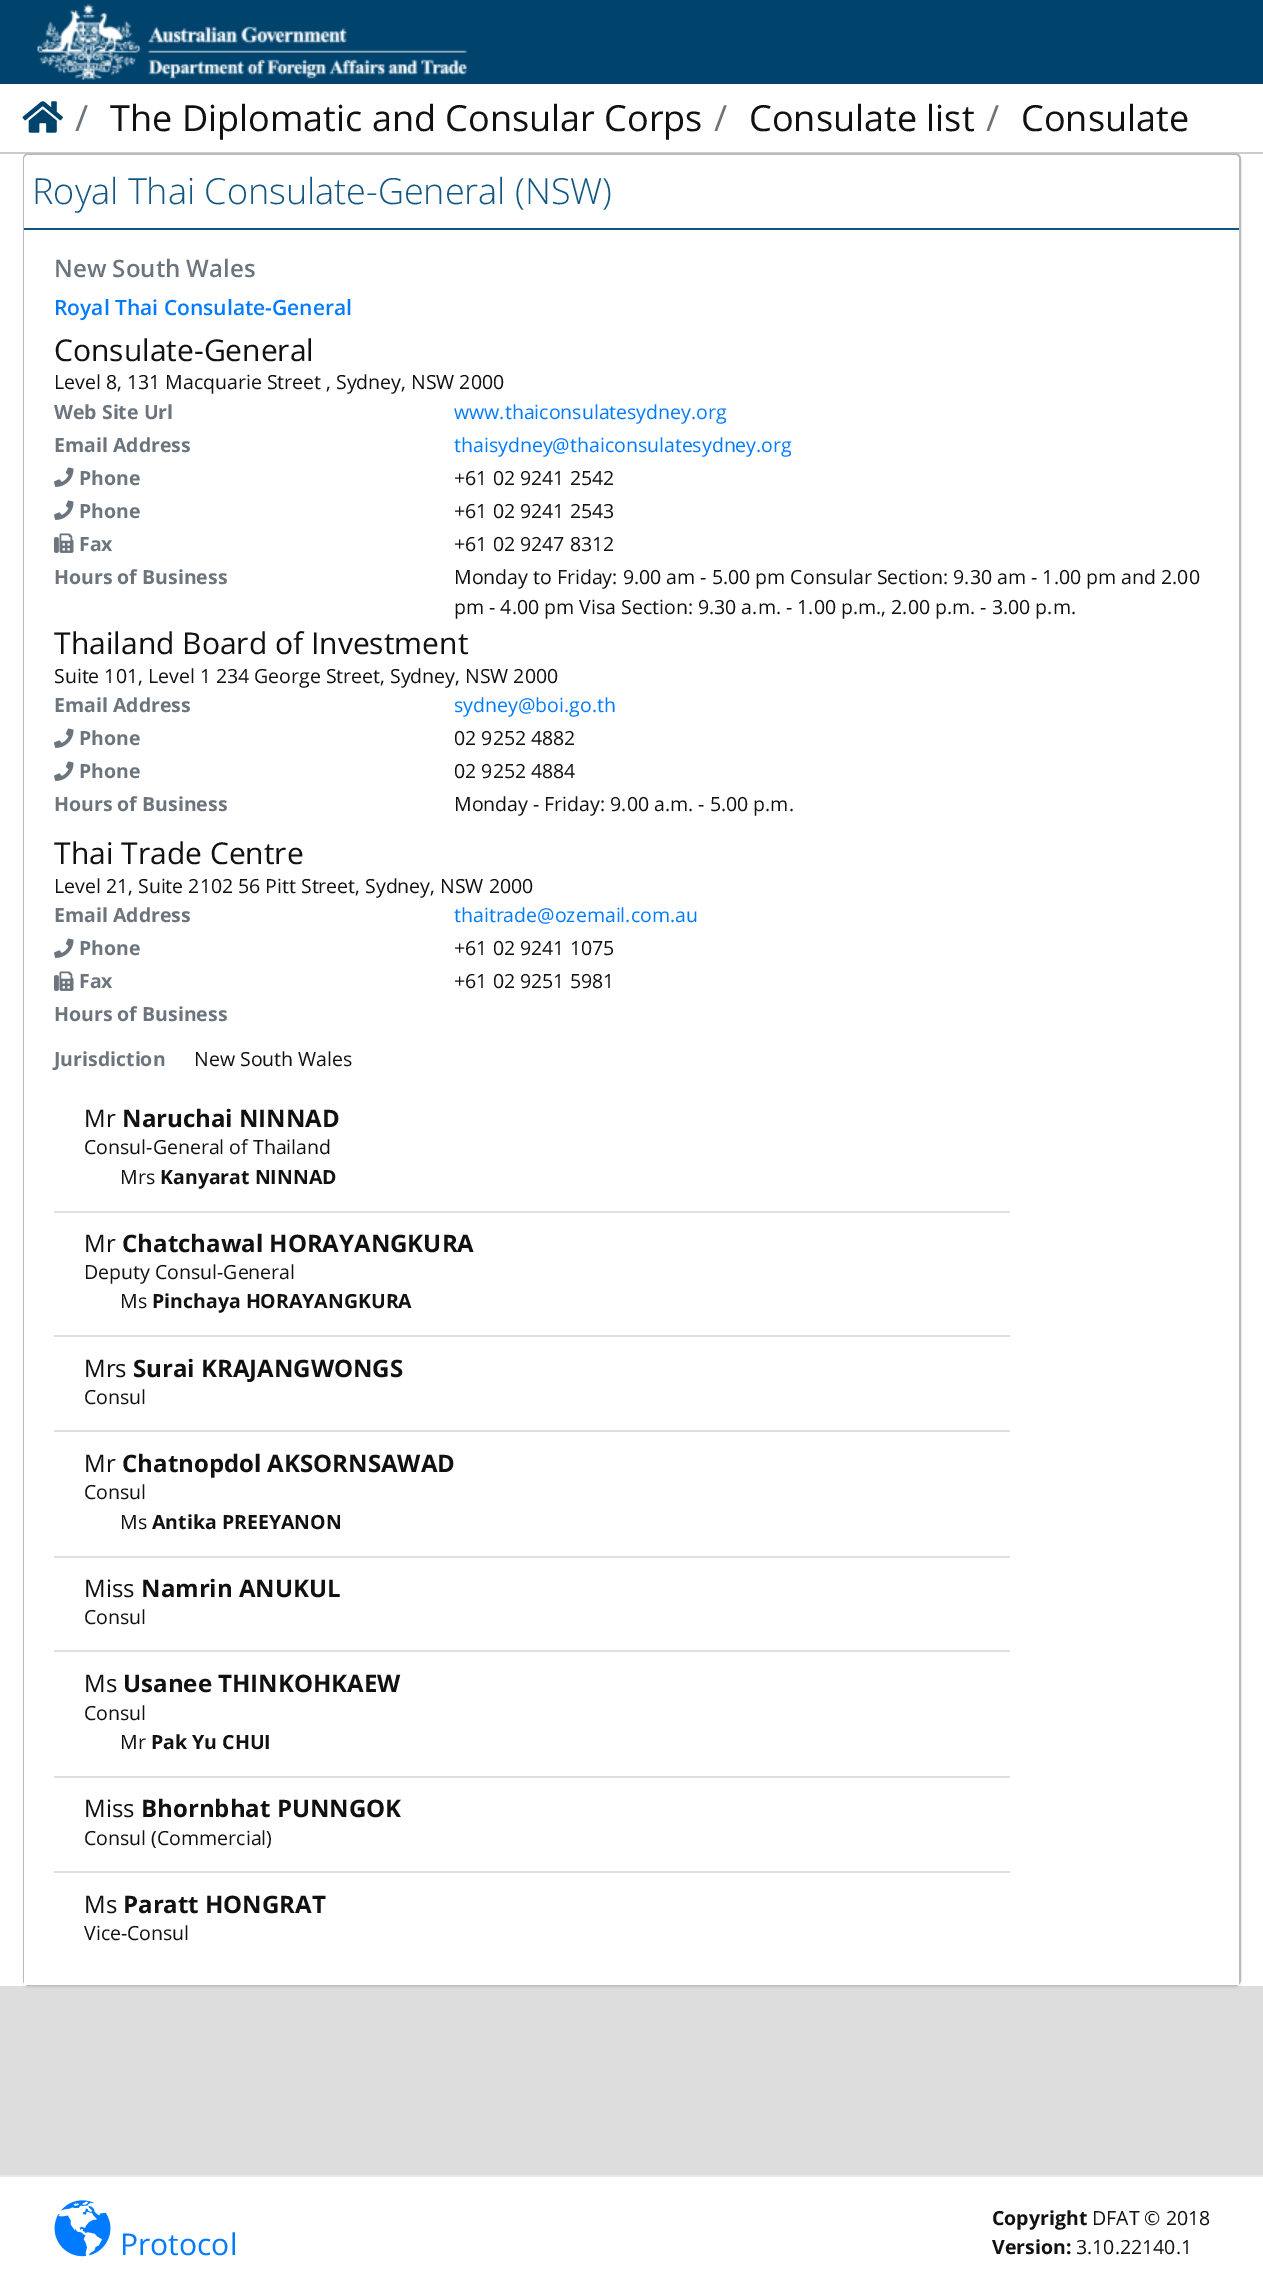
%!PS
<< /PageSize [1263 2289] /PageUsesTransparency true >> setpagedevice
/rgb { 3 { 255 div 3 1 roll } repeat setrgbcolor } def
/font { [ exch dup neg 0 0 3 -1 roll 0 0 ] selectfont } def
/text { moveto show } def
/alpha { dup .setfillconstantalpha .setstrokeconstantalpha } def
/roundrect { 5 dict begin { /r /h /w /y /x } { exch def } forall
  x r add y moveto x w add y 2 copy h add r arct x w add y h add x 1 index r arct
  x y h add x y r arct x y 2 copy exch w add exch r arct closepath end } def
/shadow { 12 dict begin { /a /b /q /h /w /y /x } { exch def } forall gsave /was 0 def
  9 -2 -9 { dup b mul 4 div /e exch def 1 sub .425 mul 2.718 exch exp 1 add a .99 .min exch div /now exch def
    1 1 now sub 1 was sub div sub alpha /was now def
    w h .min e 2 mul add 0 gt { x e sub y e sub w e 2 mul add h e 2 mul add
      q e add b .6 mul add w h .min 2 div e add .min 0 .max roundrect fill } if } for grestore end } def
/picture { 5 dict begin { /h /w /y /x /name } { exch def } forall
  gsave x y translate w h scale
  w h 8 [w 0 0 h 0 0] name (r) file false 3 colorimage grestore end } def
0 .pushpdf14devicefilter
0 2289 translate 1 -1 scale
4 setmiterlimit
221 221 221 rgb
0 0 1263 2289 rectfill
0 68 110 rgb
0 0 1263 84 rectfill
(img_01.rgb) 37 4 430 76 picture
255 255 255 rgb
0 84 1263 68 rectfill
204 204 204 rgb
0 152 1263 2 rectfill
(img_02.rgb) 22 101 41 32 picture
255 255 255 rgb
0 154 1263 1832 rectfill
0 0 0 rgb
23 155 1218 1833 6 1 0.05 shadow
255 255 255 rgb
24 154 1216 1831 5 roundrect gsave fill grestore
187 187 187 rgb
2 setlinewidth
stroke
255 255 255 rgb
29 155 moveto 1205 0 rlineto 3 0 5 2 5 5 rcurveto 0 70 rlineto -1215 0 rlineto 0 -70 rlineto 0 -3 2 -5 5 -5 rcurveto closepath fill
18 87 130 rgb
24 228 1215 2 rectfill
255 255 255 rgb
24 230 1215 1755 rectfill
(img_03.rgb) 54 467 20 20 picture
(img_03.rgb) 54 500 20 20 picture
(img_04.rgb) 54 533 20 20 picture
(img_03.rgb) 54 728 20 20 picture
(img_03.rgb) 54 761 20 20 picture
(img_03.rgb) 54 938 20 20 picture
(img_04.rgb) 54 971 20 20 picture
223 223 223 rgb
54 1211 956 2 rectfill
54 1335 956 2 rectfill
54 1430 956 2 rectfill
54 1556 956 2 rectfill
54 1650 956 2 rectfill
54 1776 956 2 rectfill
54 1871 956 2 rectfill
255 255 255 rgb
0 2177 1263 112 rectfill
231 234 236 rgb
0 2175 1263 2 rectfill
(img_05.rgb) 54 2200 57 57 picture
/OpenSans-Regular 36 font
108 117 125 rgb
(/) 75 131 text
17 17 17 rgb
(The Diplomatic and Consular Corps) 110 131 text
108 117 125 rgb
(/) 714 131 text
17 17 17 rgb
(Consulate list) 749 131 text
108 117 125 rgb
(/) 986 131 text
17 17 17 rgb
(Consulate) 1021 131 text
/OpenSans-Light 36 font
18 87 130 rgb
(Royal Thai Consulate-General \(NSW\)) 32 204 text
/OpenSans-SemiBold 24 font
108 117 125 rgb
(New South Wales) 54 277 text
/OpenSans-SemiBold 21 font
0 123 255 rgb
(Royal Thai Consulate-General) 54 315 text
/OpenSans-Regular 30 font
17 17 17 rgb
(Consulate-General) 54 361 text
/OpenSans-Regular 19.5 font
(Level 8, 131 Macquarie Street , Sydney, NSW 2000) 54 389 text
/OpenSans-Bold 19.5 font
108 117 125 rgb
(Web Site Url) 54 419 text
/OpenSans-Regular 19.5 font
0 123 255 rgb
(www.thaiconsulatesydney.org) 454 419 text
/OpenSans-Bold 19.5 font
108 117 125 rgb
(Email Address) 54 452 text
/OpenSans-Regular 19.5 font
0 123 255 rgb
(thaisydney@thaiconsulatesydney.org) 454 452 text
/OpenSans-Bold 19.5 font
108 117 125 rgb
(Phone) 79 485 text
/OpenSans-Regular 19.5 font
17 17 17 rgb
(+61 02 9241 2542) 454 485 text
/OpenSans-Bold 19.5 font
108 117 125 rgb
(Phone) 79 518 text
/OpenSans-Regular 19.5 font
17 17 17 rgb
(+61 02 9241 2543) 454 518 text
/OpenSans-Bold 19.5 font
108 117 125 rgb
(Fax) 79 551 text
/OpenSans-Regular 19.5 font
17 17 17 rgb
(+61 02 9247 8312) 454 551 text
/OpenSans-Bold 19.5 font
108 117 125 rgb
(Hours of Business) 54 584 text
/OpenSans-Regular 19.5 font
17 17 17 rgb
(Monday to Friday: 9.00 am - 5.00 pm Consular Section: 9.30 am - 1.00 pm and 2.00) 454 584 text
(pm - 4.00 pm Visa Section: 9.30 a.m. - 1.00 p.m., 2.00 p.m. - 3.00 p.m.) 454 614 text
/OpenSans-Regular 30 font
(Thailand Board of Investment) 54 654 text
/OpenSans-Regular 19.5 font
(Suite 101, Level 1 234 George Street, Sydney, NSW 2000) 54 683 text
/OpenSans-Bold 19.5 font
108 117 125 rgb
(Email Address) 54 712 text
/OpenSans-Regular 19.5 font
0 123 255 rgb
(sydney@boi.go.th) 454 712 text
/OpenSans-Bold 19.5 font
108 117 125 rgb
(Phone) 79 745 text
/OpenSans-Regular 19.5 font
17 17 17 rgb
(02 9252 4882) 454 745 text
/OpenSans-Bold 19.5 font
108 117 125 rgb
(Phone) 79 778 text
/OpenSans-Regular 19.5 font
17 17 17 rgb
(02 9252 4884) 454 778 text
/OpenSans-Bold 19.5 font
108 117 125 rgb
(Hours of Business) 54 811 text
/OpenSans-Regular 19.5 font
17 17 17 rgb
(Monday - Friday: 9.00 a.m. - 5.00 p.m.) 454 811 text
/OpenSans-Regular 30 font
(Thai Trade Centre) 54 864 text
/OpenSans-Regular 19.5 font
(Level 21, Suite 2102 56 Pitt Street, Sydney, NSW 2000) 54 893 text
/OpenSans-Bold 19.5 font
108 117 125 rgb
(Email Address) 54 922 text
/OpenSans-Regular 19.5 font
0 123 255 rgb
(thaitrade@ozemail.com.au) 454 922 text
/OpenSans-Bold 19.5 font
108 117 125 rgb
(Phone) 79 955 text
/OpenSans-Regular 19.5 font
17 17 17 rgb
(+61 02 9241 1075) 454 955 text
/OpenSans-Bold 19.5 font
108 117 125 rgb
(Fax) 79 988 text
/OpenSans-Regular 19.5 font
17 17 17 rgb
(+61 02 9251 5981) 454 988 text
/OpenSans-Bold 19.5 font
108 117 125 rgb
(Hours of Business) 54 1021 text
(Jurisdiction) 54 1066 text
/OpenSans-Regular 19.5 font
17 17 17 rgb
(New South Wales) 194 1066 text
/OpenSans-Regular 24 font
(Mr) 84 1127 text
/OpenSans-Bold 24 font
(Naruchai NINNAD) 122 1127 text
/OpenSans-Regular 19.5 font
(Consul-General of Thailand) 84 1154 text
(Mrs) 120 1184 text
/OpenSans-Bold 19.5 font
(Kanyarat NINNAD) 160 1184 text
/OpenSans-Regular 24 font
(Mr) 84 1252 text
/OpenSans-Bold 24 font
(Chatchawal HORAYANGKURA) 122 1252 text
/OpenSans-Regular 19.5 font
(Deputy Consul-General) 84 1279 text
(Ms) 120 1308 text
/OpenSans-Bold 19.5 font
(Pinchaya HORAYANGKURA) 152 1308 text
/OpenSans-Regular 24 font
(Mrs) 84 1377 text
/OpenSans-Bold 24 font
(Surai KRAJANGWONGS) 133 1377 text
/OpenSans-Regular 19.5 font
(Consul) 84 1404 text
/OpenSans-Regular 24 font
(Mr) 84 1472 text
/OpenSans-Bold 24 font
(Chatnopdol AKSORNSAWAD) 122 1472 text
/OpenSans-Regular 19.5 font
(Consul) 84 1499 text
(Ms) 120 1529 text
/OpenSans-Bold 19.5 font
(Antika PREEYANON) 152 1529 text
/OpenSans-Regular 24 font
(Miss) 84 1597 text
/OpenSans-Bold 24 font
(Namrin ANUKUL) 141 1597 text
/OpenSans-Regular 19.5 font
(Consul) 84 1624 text
/OpenSans-Regular 24 font
(Ms) 84 1692 text
/OpenSans-Bold 24 font
(Usanee THINKOHKAEW) 123 1692 text
/OpenSans-Regular 19.5 font
(Consul) 84 1720 text
(Mr) 120 1749 text
/OpenSans-Bold 19.5 font
(Pak Yu CHUI) 151 1749 text
/OpenSans-Regular 24 font
(Miss) 84 1817 text
/OpenSans-Bold 24 font
(Bhornbhat PUNNGOK) 141 1817 text
/OpenSans-Regular 19.5 font
(Consul \(Commercial\)) 84 1845 text
/OpenSans-Regular 24 font
(Ms) 84 1913 text
/OpenSans-Bold 24 font
(Paratt HONGRAT) 123 1913 text
/OpenSans-Regular 19.5 font
(Vice-Consul) 84 1940 text
/OpenSans-Regular 30 font
0 123 255 rgb
(Protocol) 120 2255 text
/OpenSans-Bold 19.5 font
17 17 17 rgb
(Copyright) 992 2225 text
/OpenSans-Regular 19.5 font
(DFAT © 2018) 1092 2225 text
/OpenSans-Bold 19.5 font
(Version:) 992 2254 text
/OpenSans-Regular 19.5 font
(3.10.22140.1) 1076 2254 text
.poppdf14devicefilter showpage
